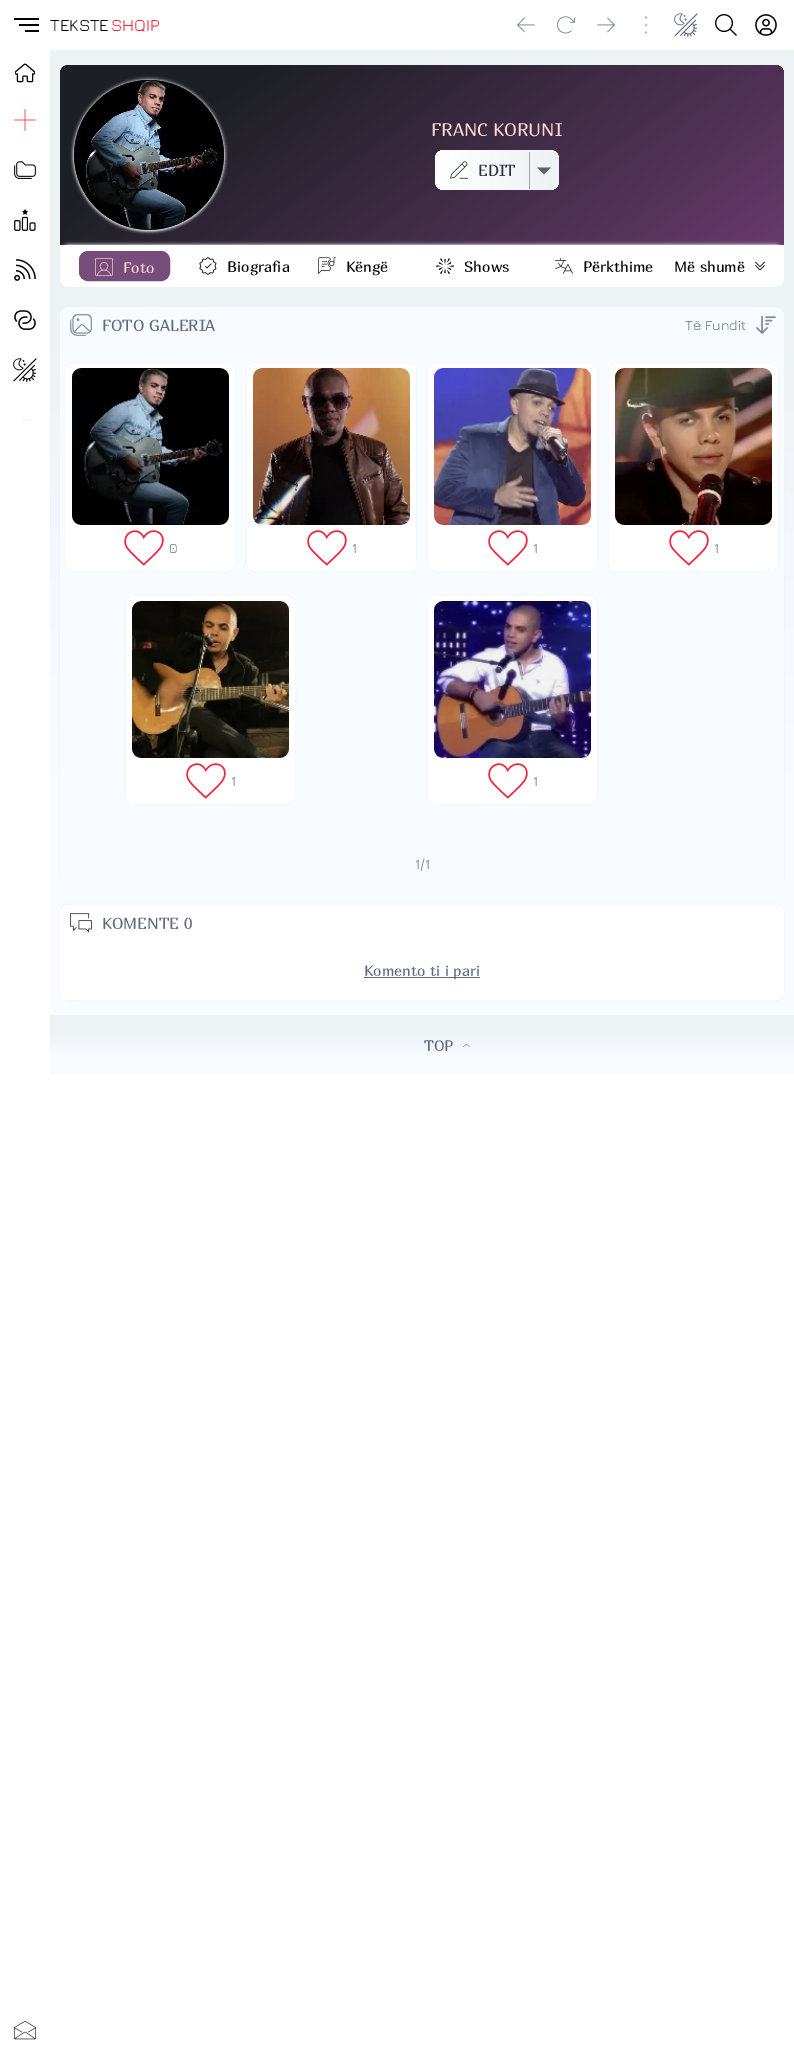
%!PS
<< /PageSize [794 2069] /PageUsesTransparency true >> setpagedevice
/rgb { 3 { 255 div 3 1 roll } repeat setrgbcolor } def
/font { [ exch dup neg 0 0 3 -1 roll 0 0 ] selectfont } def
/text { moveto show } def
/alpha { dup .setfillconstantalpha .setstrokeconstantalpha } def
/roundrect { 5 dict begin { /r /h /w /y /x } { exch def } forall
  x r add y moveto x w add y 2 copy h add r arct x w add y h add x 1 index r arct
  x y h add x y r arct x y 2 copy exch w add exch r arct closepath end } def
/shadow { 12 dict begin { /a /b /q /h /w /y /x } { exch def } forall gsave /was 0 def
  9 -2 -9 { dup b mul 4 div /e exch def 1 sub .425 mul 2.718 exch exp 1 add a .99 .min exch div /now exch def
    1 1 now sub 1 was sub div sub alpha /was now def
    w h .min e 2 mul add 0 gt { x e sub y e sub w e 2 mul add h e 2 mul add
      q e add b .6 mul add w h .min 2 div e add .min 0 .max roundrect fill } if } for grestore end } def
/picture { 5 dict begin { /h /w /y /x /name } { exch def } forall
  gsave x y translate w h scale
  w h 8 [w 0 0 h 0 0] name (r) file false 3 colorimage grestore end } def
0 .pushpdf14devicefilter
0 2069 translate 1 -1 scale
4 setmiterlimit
255 255 255 rgb
0 0 794 2069 rectfill
0 0 0 rgb
14 18 25 2 rectfill
19 24 20 2 rectfill
25 30 14 2 rectfill
(img_01.rgb) 517 17 18 16 picture
(img_02.rgb) 557 16 18 18 picture
(img_03.rgb) 597 17 18 16 picture
(img_04.rgb) 644 16 4 18 picture
(img_05.rgb) 674 13 24 24 picture
(img_06.rgb) 715 14 22 22 picture
(img_07.rgb) 755 14 22 22 picture
(img_08.rgb) 15 63 20 20 picture
(img_09.rgb) 14 109 22 22 picture
(img_10.rgb) 14 161 22 18 picture
(img_11.rgb) 14 209 22 22 picture
(img_12.rgb) 14 259 22 22 picture
(img_13.rgb) 14 310 22 20 picture
(img_14.rgb) 13 358 24 24 picture
(img_15.rgb) 23 420 5 1 picture
(img_16.rgb) 14 2021 22 19 picture
gsave 50 50 moveto 744 0 rlineto 0 965 rlineto -744 0 rlineto closepath clip newpath
<< /ShadingType 2 /ColorSpace /DeviceRGB /Coords [422 50 422 1015] /Extend [true true] /Function << /FunctionType 3 /Domain [0 1] /Functions [<< /FunctionType 2 /Domain [0 1] /C0 [0.929 0.949 0.957] /C1 [0.929 0.949 0.957] /N 1 >> << /FunctionType 2 /Domain [0 1] /C0 [0.929 0.949 0.957] /C1 [0.973 0.984 1] /N 1 >> << /FunctionType 2 /Domain [0 1] /C0 [0.973 0.984 1] /C1 [0.973 0.984 1] /N 1 >>] /Bounds [0.25 0.75] /Encode [0 1 0 1 0 1] >> >> shfill grestore
gsave 69 65 moveto 706 0 rlineto 5 0 9 4 9 9 rcurveto 0 171 rlineto -724 0 rlineto 0 -171 rlineto 0 -5 4 -9 9 -9 rcurveto closepath clip newpath
<< /ShadingType 2 /ColorSpace /DeviceRGB /Coords [261 -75 583 385] /Extend [true true] /Function << /FunctionType 3 /Domain [0 1] /Functions [<< /FunctionType 2 /Domain [0 1] /C0 [0.11 0.122 0.137] /C1 [0.11 0.122 0.137] /N 1 >> << /FunctionType 2 /Domain [0 1] /C0 [0.11 0.122 0.137] /C1 [0.404 0.224 0.424] /N 1 >>] /Bounds [0.2] /Encode [0 1 0 1] >> >> shfill grestore
237 242 244 rgb
74 80 150 150 75 2 1 shadow
74 81 150 150 75 1.5 1 shadow
(img_17.rgb) 74 80 150 150 picture
gsave 435 150 124 40 9 roundrect clip newpath
<< /ShadingType 2 /ColorSpace /DeviceRGB /Coords [435 170 559 170] /Extend [true true] /Function << /FunctionType 2 /Domain [0 1] /C0 [1 1 1] /C1 [0.929 0.949 0.957] /N 1 >> >> shfill grestore
(img_18.rgb) 450 161 18 18 picture
153 162 175 rgb
529 152 1 37 rectfill
96 97 98 rgb
537 167.5 moveto 7 7 rlineto 7 -7 rlineto closepath fill
237 242 244 rgb
60 245 724 42 9 2 1 shadow
60 246 724 42 9 1.5 1 shadow
255 255 255 rgb
60 245 moveto 724 0 rlineto 0 33 rlineto 0 5 -4 9 -9 9 rcurveto -706 0 rlineto -5 0 -9 -4 -9 -9 rcurveto closepath fill
118 77 123 rgb
79.5 251.5 90 29 8.5 roundrect gsave fill grestore
stroke
(img_19.rgb) 95 258 18 18 picture
(img_20.rgb) 199 257 18 18 picture
(img_21.rgb) 318 257 18 17 picture
(img_22.rgb) 436 258 18 16 picture
(img_23.rgb) 555 258 18 16 picture
(img_24.rgb) 755 261 10 10 picture
237 242 244 rgb
60 307 724 578 9 2 1 shadow
248 251 255 rgb
60 307 724 578 9 roundrect fill
(img_25.rgb) 70 314 22 22 picture
(img_26.rgb) 756 315 20 19 picture
237 242 244 rgb
66 363 169 208 9 2 1 shadow
255 255 255 rgb
66 363 169 208 9 roundrect fill
(img_27.rgb) 72 368 157 157 picture
(img_28.rgb) 124 530 40 36 picture
237 242 244 rgb
247 363 169 208 9 2 1 shadow
255 255 255 rgb
247 363 169 208 9 roundrect fill
(img_29.rgb) 253 368 157 157 picture
(img_28.rgb) 307 530 40 36 picture
237 242 244 rgb
428 363 169 208 9 2 1 shadow
255 255 255 rgb
428 363 169 208 9 roundrect fill
(img_30.rgb) 434 368 157 157 picture
(img_28.rgb) 488 530 40 36 picture
237 242 244 rgb
609 363 169 208 9 2 1 shadow
255 255 255 rgb
609 363 169 208 9 roundrect fill
(img_31.rgb) 615 368 157 157 picture
(img_28.rgb) 669 530 40 36 picture
237 242 244 rgb
126 596 169 208 9 2 1 shadow
255 255 255 rgb
126 596 169 208 9 roundrect fill
(img_32.rgb) 132 601 157 157 picture
(img_28.rgb) 186 763 40 36 picture
237 242 244 rgb
428 596 169 208 9 2 1 shadow
255 255 255 rgb
428 596 169 208 9 roundrect fill
(img_33.rgb) 434 601 157 157 picture
(img_28.rgb) 488 763 40 36 picture
237 242 244 rgb
60 905 724 95 9 2 1 shadow
255 255 255 rgb
60 905 724 95 9 roundrect fill
(img_34.rgb) 70 913 22 20 picture
95 107 127 rgb
364 977 116 1 rectfill
gsave 50 1015 moveto 744 0 rlineto 0 60 rlineto -744 0 rlineto closepath clip newpath
<< /ShadingType 2 /ColorSpace /DeviceRGB /Coords [422 1015 422 1075] /Extend [true true] /Function << /FunctionType 3 /Domain [0 1] /Functions [<< /FunctionType 2 /Domain [0 1] /C0 [0.929 0.949 0.957] /C1 [0.929 0.949 0.957] /N 1 >> << /FunctionType 2 /Domain [0 1] /C0 [0.929 0.949 0.957] /C1 [0.973 0.984 1] /N 1 >> << /FunctionType 2 /Domain [0 1] /C0 [0.973 0.984 1] /C1 [0.973 0.984 1] /N 1 >>] /Bounds [0.25 0.75] /Encode [0 1 0 1 0 1] >> >> shfill grestore
(img_35.rgb) 463 1043 7 5 picture
/Jura-Light 17 font
0 0 0 rgb
(TEKSTE) 50 31 text
239 35 60 rgb
(SHQIP) 111 31 text
/Marmelad-Regular 18 font
255 215 215 rgb
(FRANC KORUNI) 431 136 text
/Marmelad-Regular 16 font
43 45 66 rgb
(EDIT) 478 176 text
/Marmelad-Regular 15 font
255 215 215 rgb
(Foto) 123 273 text
0 0 0 rgb
(Biografia) 227 272 text
(Këngë) 346 272 text
(Shows) 464 272 text
(Përkthime) 583 272 text
(Më shumë) 674 272 text
/Marmelad-Regular 16 font
95 107 127 rgb
(FOTO GALERIA) 102 331 text
/Jura-Light 14 font
(Të Fundit) 685 330 text
(0) 169 553 text
(1) 352 553 text
(1) 533 553 text
(1) 714 553 text
(1) 231 786 text
(1) 533 786 text
(1/1) 415 869 text
/Marmelad-Regular 16 font
(KOMENTE 0) 102 929 text
/Marmelad-Regular 15 font
(Komento ti i pari) 364 976 text
(TOP) 424 1051 text
.poppdf14devicefilter showpage
